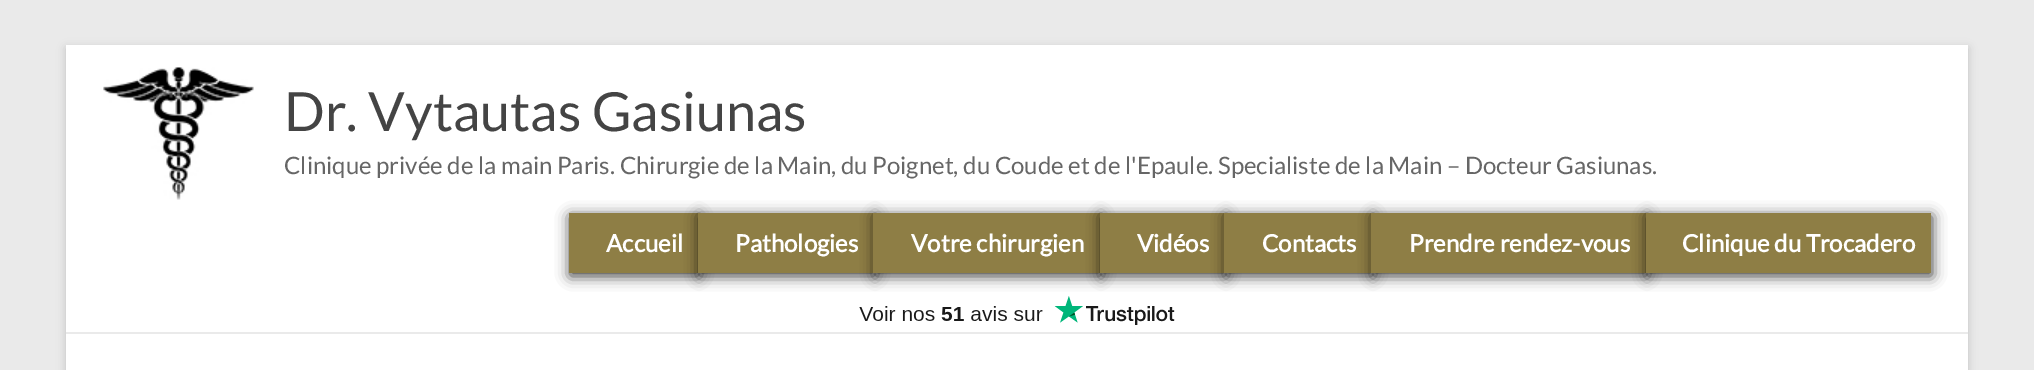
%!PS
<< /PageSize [2034 370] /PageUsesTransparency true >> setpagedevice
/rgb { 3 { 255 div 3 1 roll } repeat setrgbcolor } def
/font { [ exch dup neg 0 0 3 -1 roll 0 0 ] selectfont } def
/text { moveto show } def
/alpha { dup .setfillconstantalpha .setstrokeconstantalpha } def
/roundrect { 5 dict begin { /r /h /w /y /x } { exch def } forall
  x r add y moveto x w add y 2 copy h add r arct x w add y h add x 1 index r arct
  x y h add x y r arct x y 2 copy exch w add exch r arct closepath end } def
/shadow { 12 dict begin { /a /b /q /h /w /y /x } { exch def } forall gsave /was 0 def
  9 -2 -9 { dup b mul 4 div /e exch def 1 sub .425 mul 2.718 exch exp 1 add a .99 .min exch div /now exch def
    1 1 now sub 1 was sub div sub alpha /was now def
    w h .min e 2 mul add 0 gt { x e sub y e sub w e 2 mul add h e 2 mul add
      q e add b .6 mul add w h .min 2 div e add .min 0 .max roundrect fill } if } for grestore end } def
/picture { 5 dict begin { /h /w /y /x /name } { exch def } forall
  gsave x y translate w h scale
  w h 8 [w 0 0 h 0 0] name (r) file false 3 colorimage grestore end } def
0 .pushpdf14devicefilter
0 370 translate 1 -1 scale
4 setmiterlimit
234 234 234 rgb
0 0 2034 370 rectfill
100 100 100 rgb
66 48 1902 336 0 4.5 0.3 shadow
255 255 255 rgb
66 45 1902 325 rectfill
234 234 234 rgb
66 332 1902 2 rectfill
(img_01.rgb) 103 67 151 133 picture
0 0 0 rgb
570 216 129 60 0 7 0.78 shadow
142 126 69 rgb
569 213 129 60 rectfill
0 0 0 rgb
699 216 176 60 0 7 0.78 shadow
142 126 69 rgb
698 213 175 60 rectfill
0 0 0 rgb
875 216 226 60 0 7 0.78 shadow
142 126 69 rgb
873 213 227 60 rectfill
0 0 0 rgb
1101 216 125 60 0 7 0.78 shadow
142 126 69 rgb
1100 213 124 60 rectfill
0 0 0 rgb
1226 216 147 60 0 7 0.78 shadow
142 126 69 rgb
1224 213 147 60 rectfill
0 0 0 rgb
1373 216 274 60 0 7 0.78 shadow
142 126 69 rgb
1371 213 275 60 rectfill
0 0 0 rgb
1647 216 285 60 0 7 0.78 shadow
142 126 69 rgb
1646 213 285 60 rectfill
(img_02.rgb) 859 296 316 29 picture
/Lato-Regular 54 font
68 68 68 rgb
(Dr. Vytautas Gasiunas) 284 131 text
/Lato-Regular 24 font
102 102 102 rgb
(Clinique privée de la main Paris. Chirurgie de la Main, du Poignet, du Coude et de l'Epaule. Specialiste de la Main – Docteur Gasiunas.) 284 174 text
/Lato-Bold 24 font
255 255 255 rgb
(Accueil) 606 252 text
(Pathologies) 735 252 text
(Votre chirurgien) 911 252 text
(Vidéos) 1137 252 text
(Contacts) 1262 252 text
(Prendre rendez-vous) 1409 252 text
(Clinique du Trocadero) 1682 252 text
.poppdf14devicefilter showpage
